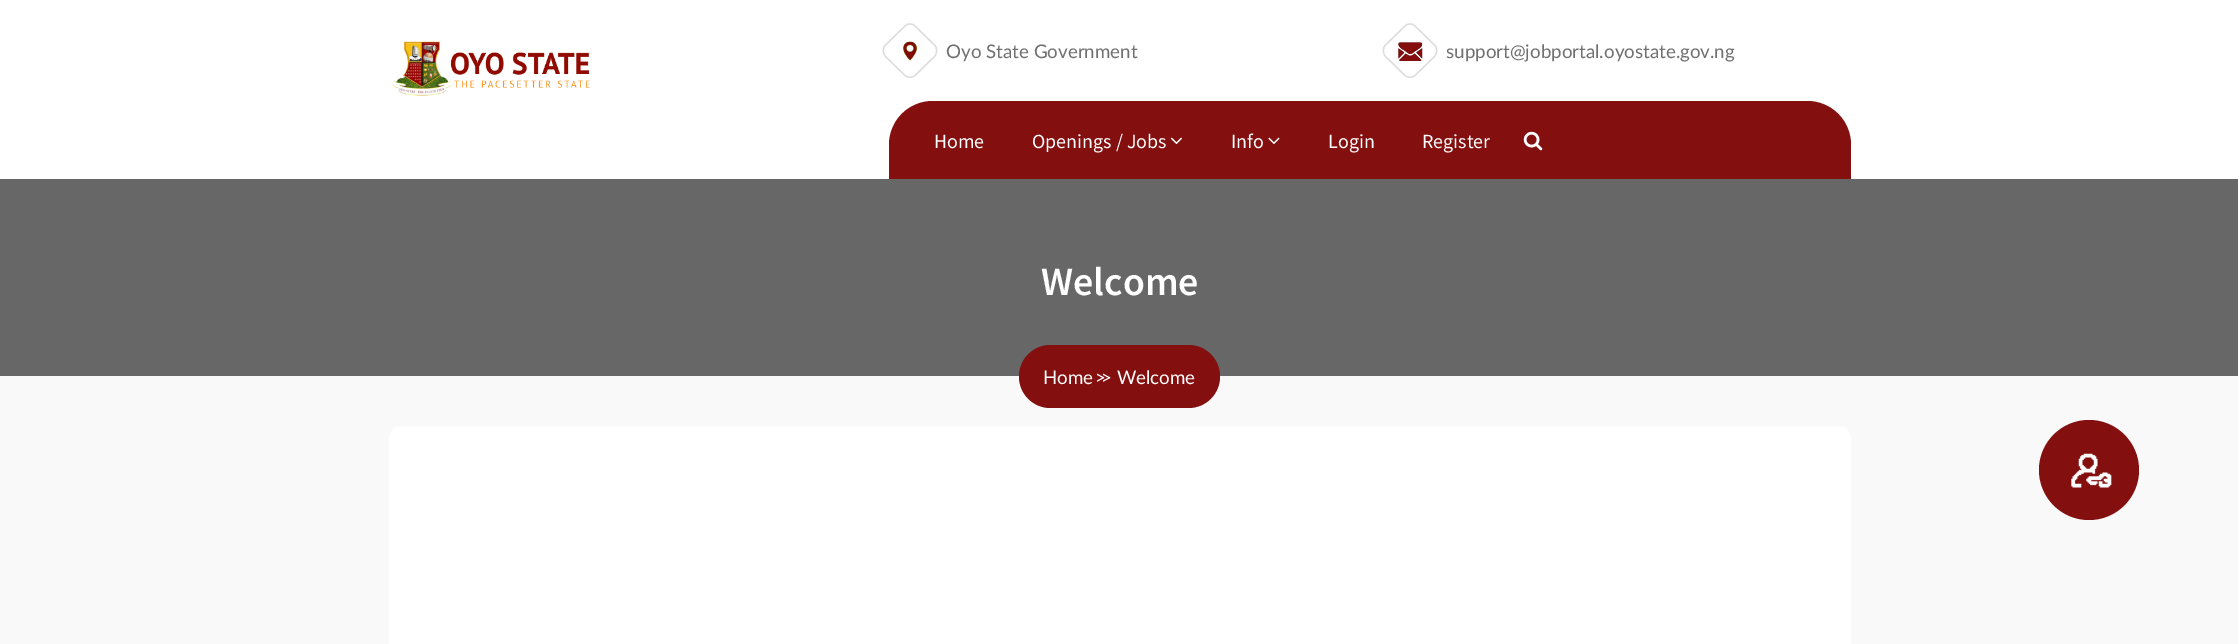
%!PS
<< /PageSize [2238 644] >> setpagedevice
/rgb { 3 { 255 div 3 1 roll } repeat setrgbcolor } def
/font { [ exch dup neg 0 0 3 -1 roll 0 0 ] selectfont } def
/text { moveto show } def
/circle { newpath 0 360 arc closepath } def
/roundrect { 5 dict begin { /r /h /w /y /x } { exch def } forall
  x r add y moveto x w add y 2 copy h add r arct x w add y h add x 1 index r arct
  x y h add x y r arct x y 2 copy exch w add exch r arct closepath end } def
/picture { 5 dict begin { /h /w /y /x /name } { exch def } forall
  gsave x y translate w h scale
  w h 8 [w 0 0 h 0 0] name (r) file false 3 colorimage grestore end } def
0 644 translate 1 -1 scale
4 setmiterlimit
255 255 255 rgb
0 0 2238 644 rectfill
(img_01.rgb) 392 41 198 55 picture
222 221 219 rgb
1.3 setlinewidth
915.5 26.5 moveto 19 18.5 rlineto 3 3 3 8 0 11.5 rcurveto -19 18.5 rlineto -3 3 -8 3 -11 0 rcurveto -19 -18.5 rlineto -3 -3.5 -3 -8.5 0 -11.5 rcurveto 19 -18.5 rlineto 3 -3.5 8 -3.5 11 0 rcurveto closepath stroke
(img_02.rgb) 903 41 14 20 picture
1415.5 26.5 moveto 19 18.5 rlineto 3 3 3 8 0 11.5 rcurveto -19 18.5 rlineto -3 3 -8 3 -11 0 rcurveto -19 -18.5 rlineto -3 -3.5 -3 -8.5 0 -11.5 rcurveto 19 -18.5 rlineto 3 -3.5 8 -3.5 11 0 rcurveto closepath stroke
(img_03.rgb) 1398 42 25 19 picture
131 15 15 rgb
933 101 moveto 874 0 rlineto 24.5 0 44 19.5 44 44 rcurveto 0 34 rlineto -962 0 rlineto 0 -34 rlineto 0 -24.5 19.5 -44 44 -44 rcurveto closepath fill
(img_04.rgb) 1170 137 12 8 picture
(img_05.rgb) 1268 137 12 8 picture
(img_06.rgb) 1523 131 20 20 picture
103 103 103 rgb
0 179 2238 197 rectfill
249 249 249 rgb
0 376 2238 268 rectfill
131 15 15 rgb
1019 345 201 63 31.5 roundrect fill
255 255 255 rgb
389 426 1462 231 13 roundrect fill
131 15 15 rgb
2089 470 50 circle fill
(img_07.rgb) 2071 453 41 35 picture
/Lato-Regular 18.75 font
112 112 112 rgb
(Oyo State Government) 946 58 text
(support@jobportal.oyostate.gov.ng) 1446 58 text
/SourceSansPro-Regular 20 font
255 255 255 rgb
(Home) 934 148 text
(Openings / Jobs) 1032 148 text
(Info) 1231 148 text
(Login) 1328 148 text
(Register) 1422 148 text
/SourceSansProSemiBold-SemiBold 40 font
(Welcome) 1041 295 text
/Lato-Regular 18.75 font
(Home) 1043 384 text
(>) 1095 384 text
(> Welcome) 1101 384 text
showpage
